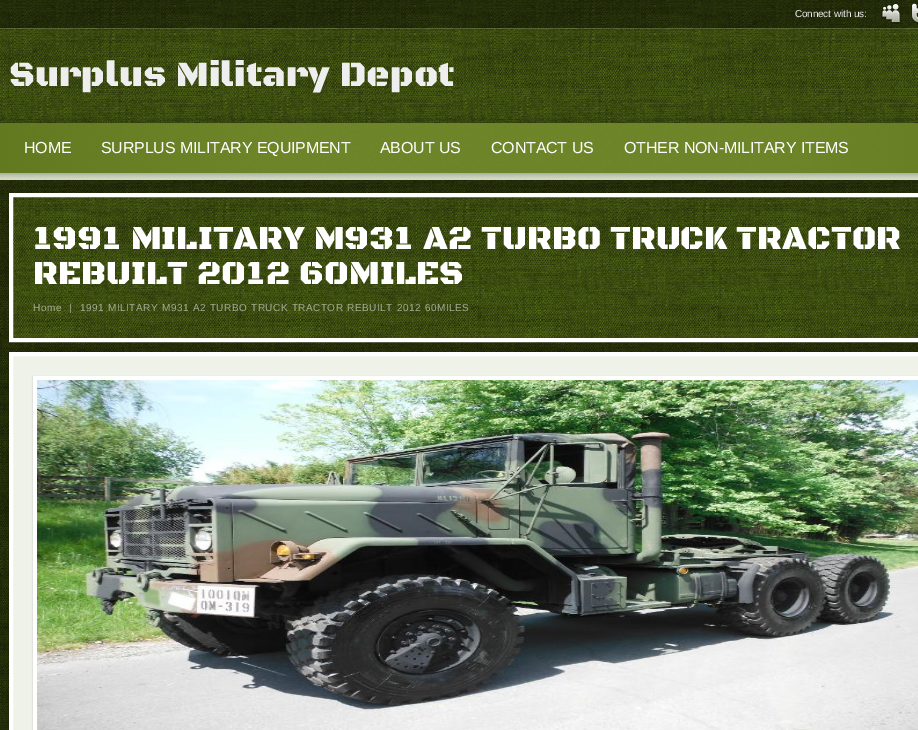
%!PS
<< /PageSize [918 730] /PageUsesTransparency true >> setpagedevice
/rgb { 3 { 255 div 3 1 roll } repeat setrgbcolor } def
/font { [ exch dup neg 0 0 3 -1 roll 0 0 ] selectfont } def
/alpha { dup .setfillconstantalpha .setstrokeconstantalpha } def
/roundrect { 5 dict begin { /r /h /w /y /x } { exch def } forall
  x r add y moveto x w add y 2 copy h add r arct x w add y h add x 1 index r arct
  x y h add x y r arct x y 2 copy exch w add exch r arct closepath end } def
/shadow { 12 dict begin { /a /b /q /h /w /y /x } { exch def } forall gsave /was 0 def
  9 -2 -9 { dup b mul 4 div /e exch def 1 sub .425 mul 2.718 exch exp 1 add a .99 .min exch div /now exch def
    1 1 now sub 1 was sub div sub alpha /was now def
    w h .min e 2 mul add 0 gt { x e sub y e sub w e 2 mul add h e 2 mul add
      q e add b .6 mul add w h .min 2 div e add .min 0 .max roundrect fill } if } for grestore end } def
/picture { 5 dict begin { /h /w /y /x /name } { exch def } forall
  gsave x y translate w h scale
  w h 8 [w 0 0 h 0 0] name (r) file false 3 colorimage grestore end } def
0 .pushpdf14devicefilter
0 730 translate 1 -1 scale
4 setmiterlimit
69 88 18 rgb
0 0 918 730 rectfill
(img_01.rgb) 0 180 918 550 picture
(img_02.rgb) 0 0 918 28 picture
(img_03.rgb) 881 3 20 21 picture
(img_04.rgb) 911 3 7 21 picture
116 148 31 rgb
0 28 918 95 rectfill
(img_05.rgb) 0 28 918 95 picture
0.15 alpha
255 255 255 rgb
0 28 918 1 rectfill
0.1 alpha
0 0 0 rgb
0 118 918 5 rectfill
1 alpha
209 217 195 rgb
0 173 918 7 rectfill
(img_06.rgb) 0 173 918 5 picture
(img_07.rgb) 0 123 918 50 picture
0 0 0 rgb
9 194 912 149 0 1 0.2 shadow
116 148 31 rgb
13 197 905 141 rectfill
(img_08.rgb) 13 197 905 141 picture
255 255 255 rgb
4 setlinewidth
11 195 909 145 rectstroke
0 0 0 rgb
9 353 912 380 0 1 0.2 shadow
239 242 233 rgb
11 354 moveto 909 0 rlineto 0 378 rlineto -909 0 rlineto closepath gsave fill grestore
255 255 255 rgb
stroke
0 0 0 rgb
33 377 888 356 0 1 0.18 shadow
255 255 255 rgb
33 376 885 354 rectfill
(img_09.rgb) 37 380 881 350 picture
/LiberationSans-Regular 10 font
238 238 238 rgb
795 17 moveto 0.5 0 32 -0.2 0 (Connect with us:) awidthshow
/BlackOpsOne-Black 36 font
9 86 moveto 0.5 0 32 0.2 0 (Surplus Military Depot) awidthshow
/LiberationSans-Regular 16 font
255 255 255 rgb
24 153 moveto -0.2 0 (HOME) ashow
101 153 moveto 0.5 0 32 -0.2 0 (SURPLUS MILITARY EQUIPMENT) awidthshow
380 153 moveto 0.5 0 32 -0.2 0 (ABOUT US) awidthshow
491 153 moveto 0.5 0 32 -0.2 0 (CONTACT US) awidthshow
624 153 moveto 0.5 0 32 -0.2 0 (OTHER NON-MILITARY ITEMS) awidthshow
/BlackOpsOne-Black 34 font
33 249 moveto 0.5 0 32 (1991 MILITARY M931 A2 TURBO TRUCK TRACTOR) widthshow
33 284 moveto 0.5 0 32 (REBUILT 2012 60MILES) widthshow
/LiberationSans-Regular 10 font
163 173 145 rgb
33 311 moveto 0.5 0 (Home) ashow
69 311 moveto 0.5 0 (|) ashow
80 311 moveto 0.5 0 32 0.5 0 (1991 MILITARY M931 A2 TURBO TRUCK TRACTOR REBUILT 2012 60MILES) awidthshow
.poppdf14devicefilter showpage
